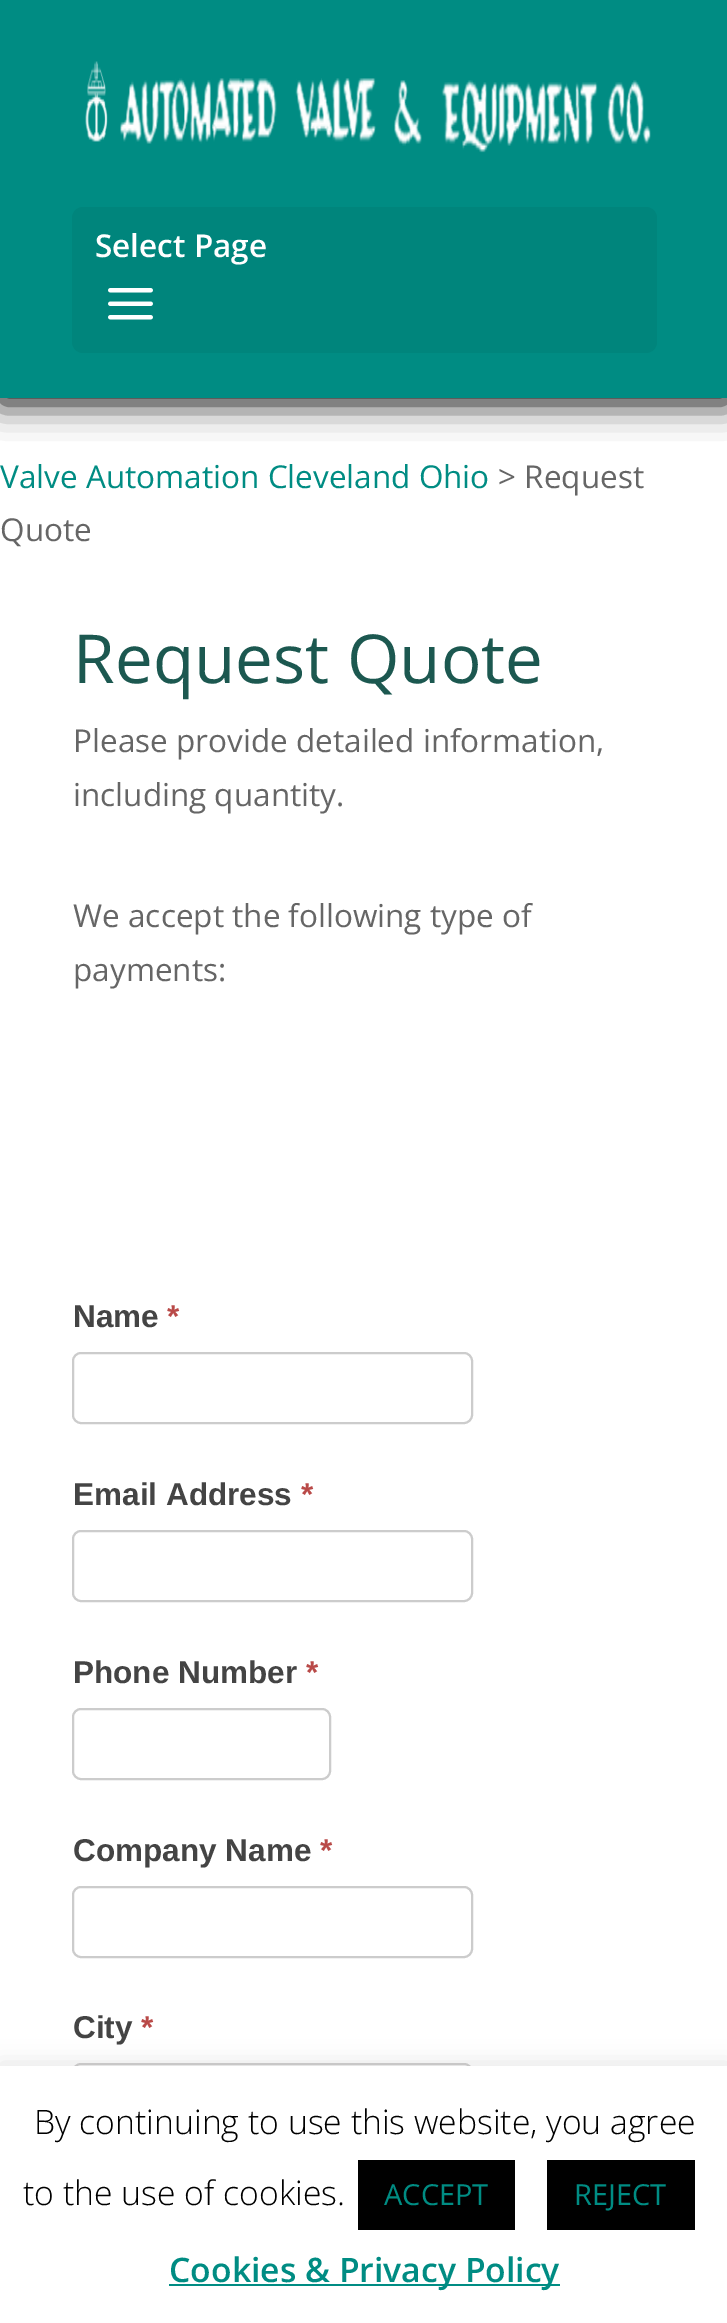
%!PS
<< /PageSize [727 2323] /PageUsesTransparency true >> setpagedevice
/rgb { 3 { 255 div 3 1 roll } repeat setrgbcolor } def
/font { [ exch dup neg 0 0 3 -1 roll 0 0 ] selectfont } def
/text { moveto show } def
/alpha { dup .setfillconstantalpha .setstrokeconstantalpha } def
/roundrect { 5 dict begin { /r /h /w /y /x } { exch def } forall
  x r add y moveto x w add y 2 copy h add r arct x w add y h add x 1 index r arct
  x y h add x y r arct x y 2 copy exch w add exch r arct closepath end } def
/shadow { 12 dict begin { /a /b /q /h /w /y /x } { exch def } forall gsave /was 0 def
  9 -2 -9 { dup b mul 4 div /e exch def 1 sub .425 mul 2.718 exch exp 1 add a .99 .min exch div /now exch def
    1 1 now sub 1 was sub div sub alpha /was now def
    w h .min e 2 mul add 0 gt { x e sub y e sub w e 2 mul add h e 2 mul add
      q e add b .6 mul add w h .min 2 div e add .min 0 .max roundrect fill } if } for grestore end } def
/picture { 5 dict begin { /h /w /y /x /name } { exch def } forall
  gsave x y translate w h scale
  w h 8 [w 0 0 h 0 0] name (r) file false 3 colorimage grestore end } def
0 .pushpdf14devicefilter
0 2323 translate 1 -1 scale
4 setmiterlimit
255 255 255 rgb
0 0 727 2323 rectfill
0 0 0 rgb
0 5 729 398 0 17 1 shadow
0 140 131 rgb
0 0 727 398 rectfill
(img_01.rgb) 85 61 566 92 picture
0 133 124 rgb
72 207 585 146 11 roundrect fill
(img_02.rgb) 108 288 45 32 picture
204 204 204 rgb
2 setlinewidth
73 1353 399 70 8 roundrect stroke
73 1531 399 70 8 roundrect stroke
73 1709 257 70 8 roundrect stroke
73 1887 399 70 8 roundrect stroke
73 2064 399 70 8 roundrect stroke
172 171 171 rgb
0 2063 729 259 0 11 0.3 shadow
255 255 255 rgb
0 2066 727 257 rectfill
0 0 0 rgb
358 2160 157 70 rectfill
547 2160 148 70 rectfill
0 140 131 rgb
169 2284 391 2 rectfill
/OpenSans-SemiBold 31.5 font
255 255 255 rgb
(Select Page) 95 257 text
/OpenSans-Regular 31.5 font
0 140 131 rgb
(Valve Automation Cleveland Ohio) 0 488 text
102 102 102 rgb
(> Request) 498 488 text
(Quote) 0 541 text
/OpenSans-Regular 67.5 font
28 88 80 rgb
(Request Quote) 73 683 text
/OpenSans-Regular 31.5 font
102 102 102 rgb
(Please provide detailed information,) 73 752 text
(including quantity.) 73 806 text
(We accept the following type of) 73 927 text
(payments:) 73 981 text
/LiberationSans-Bold 31.5 font
68 68 68 rgb
(Name) 73 1327 text
185 74 72 rgb
(*) 167 1327 text
68 68 68 rgb
(Email Address) 73 1505 text
185 74 72 rgb
(*) 301 1505 text
68 68 68 rgb
(Phone Number) 73 1683 text
185 74 72 rgb
(*) 306 1683 text
68 68 68 rgb
(Company Name) 73 1861 text
185 74 72 rgb
(*) 320 1861 text
68 68 68 rgb
(City) 73 2038 text
185 74 72 rgb
(*) 141 2038 text
/OpenSans-Light 33.75 font
0 0 0 rgb
(By continuing to use this website, you agree) 34 2134 text
(to the use of cookies.) 23 2205 text
/OpenSans-Regular 29 font
0 140 131 rgb
(ACCEPT) 384 2205 text
(REJECT) 574 2205 text
/OpenSans-SemiBold 33.75 font
(Cookies & Privacy Policy) 169 2282 text
.poppdf14devicefilter showpage
